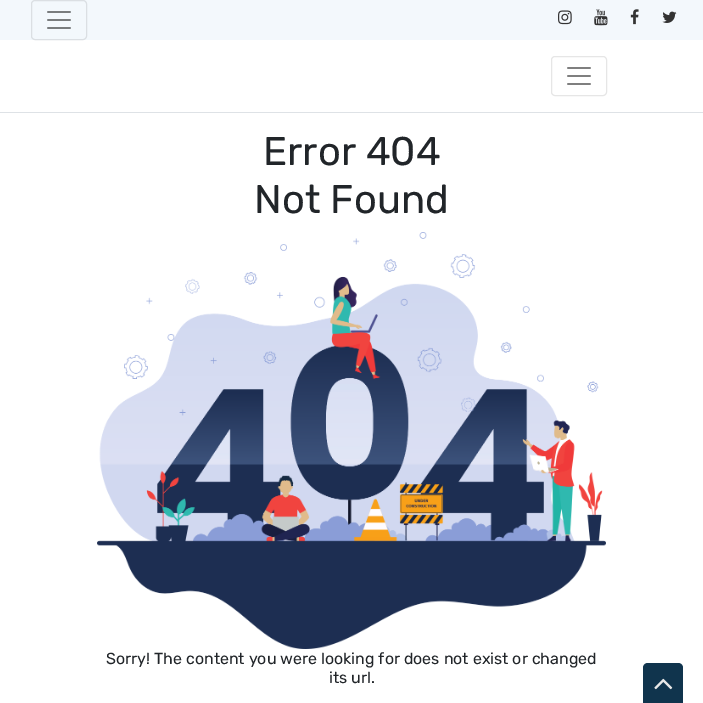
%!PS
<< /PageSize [703 703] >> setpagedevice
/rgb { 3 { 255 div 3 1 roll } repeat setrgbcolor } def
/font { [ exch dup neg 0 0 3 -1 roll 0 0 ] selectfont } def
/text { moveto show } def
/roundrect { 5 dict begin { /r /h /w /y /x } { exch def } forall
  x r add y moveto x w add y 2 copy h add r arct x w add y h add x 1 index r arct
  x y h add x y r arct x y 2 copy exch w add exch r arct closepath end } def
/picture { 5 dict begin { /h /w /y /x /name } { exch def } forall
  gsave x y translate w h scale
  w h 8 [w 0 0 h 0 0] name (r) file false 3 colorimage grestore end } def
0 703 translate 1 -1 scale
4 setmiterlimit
255 255 255 rgb
0 0 703 703 rectfill
243 248 252 rgb
0 0 703 40 rectfill
219 223 227 rgb
31.5 0.5 55 39 3.5 roundrect stroke
(img_01.rgb) 47 11 24 18 picture
(img_02.rgb) 558 10 14 15 picture
(img_03.rgb) 594 9 14 17 picture
(img_04.rgb) 630 9 9 16 picture
(img_05.rgb) 662 11 15 12 picture
222 226 230 rgb
0 112 703 1 rectfill
230 230 230 rgb
551.5 56.5 55 39 3.5 roundrect stroke
(img_06.rgb) 567 67 24 18 picture
(img_07.rgb) 97 232 509 417 picture
16 52 77 rgb
648 663 moveto 30 0 rlineto 3 0 5 2 5 5 rcurveto 0 35 rlineto -40 0 rlineto 0 -35 rlineto 0 -3 2 -5 5 -5 rcurveto closepath fill
(img_08.rgb) 654 678 19 12 picture
/Rubik-Light 40 font
33 37 41 rgb
(Error 404) 263 165 text
(Not Found) 254 213 text
/Rubik-Light 16 font
(Sorry! The content you were looking for does not exist or changed) 106 664 text
(its url.) 329 683 text
showpage
